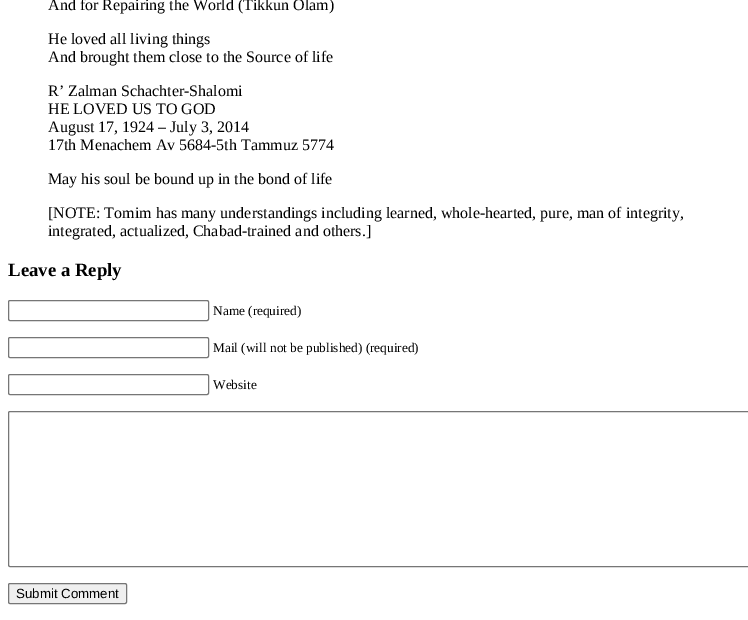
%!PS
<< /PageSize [748 620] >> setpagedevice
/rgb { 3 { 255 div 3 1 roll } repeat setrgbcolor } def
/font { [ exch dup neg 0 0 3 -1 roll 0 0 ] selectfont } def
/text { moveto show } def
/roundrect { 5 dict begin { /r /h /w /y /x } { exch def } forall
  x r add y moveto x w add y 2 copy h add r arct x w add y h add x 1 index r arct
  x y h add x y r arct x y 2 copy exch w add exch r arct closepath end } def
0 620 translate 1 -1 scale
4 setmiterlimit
255 255 255 rgb
0 0 748 620 rectfill
118 118 118 rgb
8.5 300.5 200 20 1.5 roundrect stroke
8.5 337.5 200 20 1.5 roundrect stroke
8.5 374.5 200 20 1.5 roundrect stroke
8.5 411.5 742 155 1.5 roundrect stroke
239 239 239 rgb
8.5 583.5 118 20 1.5 roundrect gsave fill grestore
118 118 118 rgb
stroke
/LiberationSerif-Regular 16 font
0 0 0 rgb
(And for Repairing the World \(Tikkun Olam\)) 48 10 text
(He loved all living things) 48 44 text
(And brought them close to the Source of life) 48 62 text
(R’ Zalman Schachter-Shalomi) 48 96 text
(HE LOVED US TO GOD) 48 114 text
(August 17, 1924 – July 3, 2014) 48 132 text
(17th Menachem Av 5684-5th Tammuz 5774) 48 150 text
(May his soul be bound up in the bond of life) 48 184 text
([NOTE: Tomim has many understandings including learned, whole-hearted, pure, man of integrity,) 48 218 text
(integrated, actualized, Chabad-trained and others.]) 48 236 text
/LiberationSerif-Bold 18.75 font
(Leave a Reply) 8 276 text
/LiberationSerif-Regular 13.3 font
(Name \(required\)) 213 315 text
(Mail \(will not be published\) \(required\)) 213 352 text
(Website) 213 389 text
/LiberationSans-Regular 13.3 font
(Submit Comment) 16 598 text
showpage
